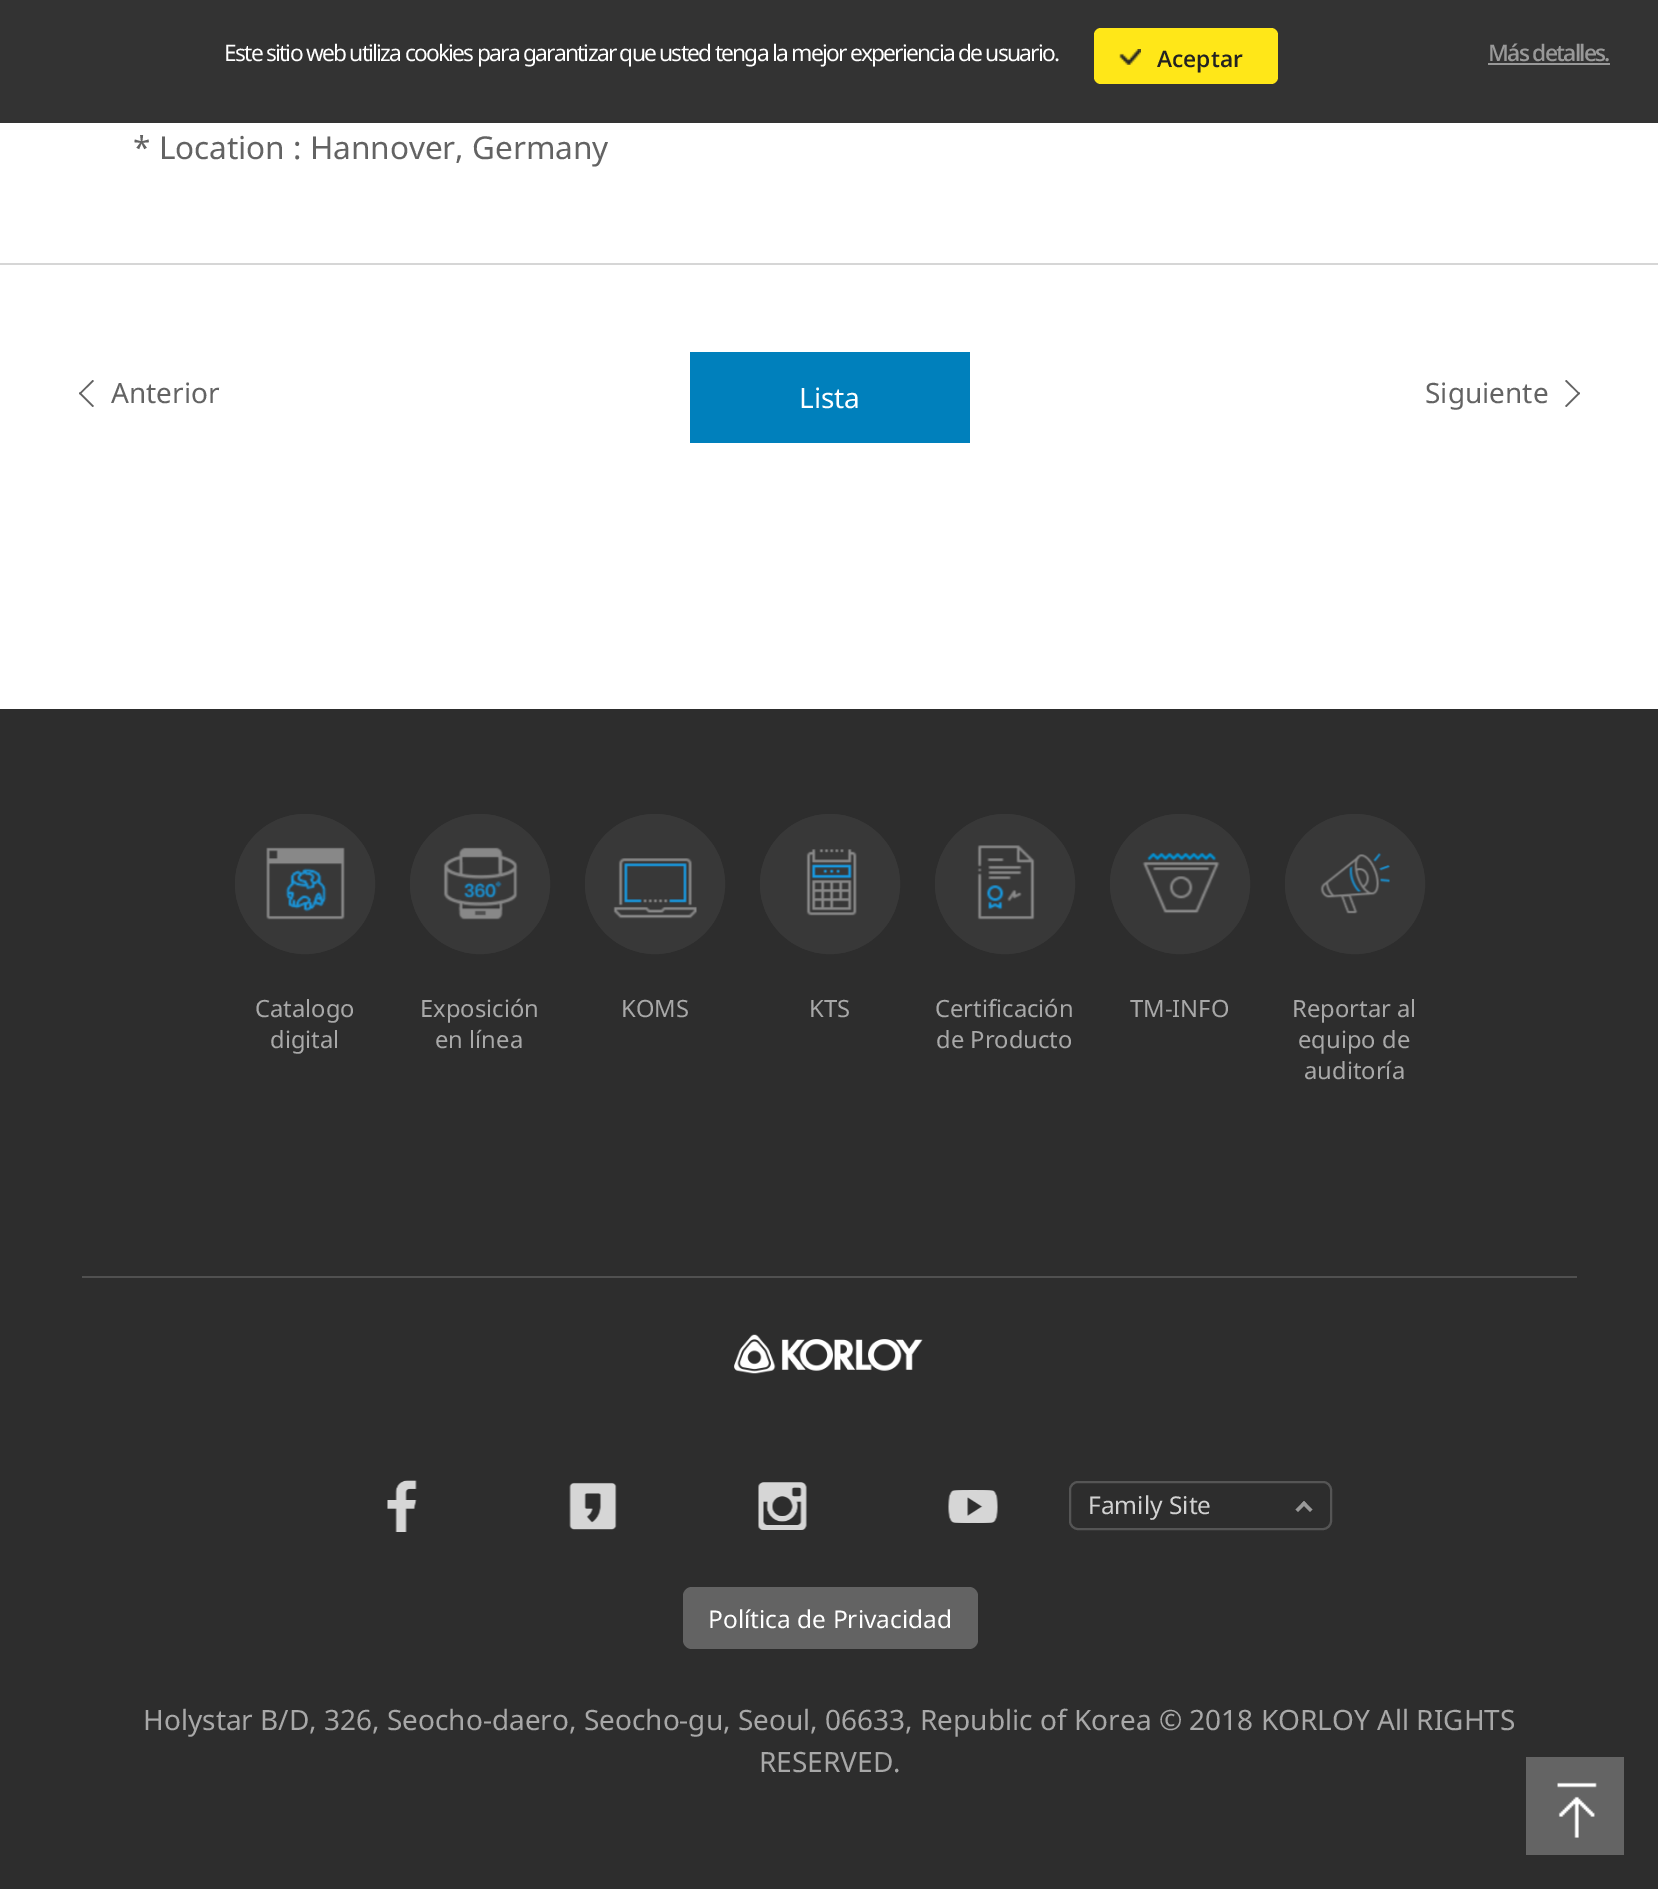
%!PS
<< /PageSize [1658 1889] >> setpagedevice
/rgb { 3 { 255 div 3 1 roll } repeat setrgbcolor } def
/font { [ exch dup neg 0 0 3 -1 roll 0 0 ] selectfont } def
/text { moveto show } def
/circle { newpath 0 360 arc closepath } def
/roundrect { 5 dict begin { /r /h /w /y /x } { exch def } forall
  x r add y moveto x w add y 2 copy h add r arct x w add y h add x 1 index r arct
  x y h add x y r arct x y 2 copy exch w add exch r arct closepath end } def
/picture { 5 dict begin { /h /w /y /x /name } { exch def } forall
  gsave x y translate w h scale
  w h 8 [w 0 0 h 0 0] name (r) file false 3 colorimage grestore end } def
0 1889 translate 1 -1 scale
4 setmiterlimit
255 255 255 rgb
0 0 1658 1889 rectfill
51 51 51 rgb
0 0 1658 123 rectfill
255 231 24 rgb
1094 28 184 56 7 roundrect fill
(img_01.rgb) 1119 49 22 16 picture
153 153 153 rgb
1488 63 122 2 rectfill
214 214 214 rgb
0 263 1658 2 rectfill
99 99 99 rgb
79 393.5 moveto 13.5 -13.5 rlineto 1.5 1 rlineto -14 13.5 rlineto closepath fill
79 393.5 moveto 1 -1.5 rlineto 14 14 rlineto -1.5 1 rlineto closepath fill
0 128 188 rgb
690 352 280 91 rectfill
99 99 99 rgb
1580 393.5 moveto -13.5 13.5 rlineto -1.5 -1 rlineto 14 -14 rlineto closepath fill
1580 393.5 moveto -1 1 rlineto -14 -13.5 rlineto 1.5 -1 rlineto closepath fill
45 45 45 rgb
0 709 1658 1180 rectfill
56 56 56 rgb
305 884 70 circle fill
(img_02.rgb) 266 847 79 73 picture
2 setlinewidth
305 884 69 circle stroke
480 884 70 circle fill
(img_03.rgb) 443 847 75 73 picture
480 884 69 circle stroke
655 884 70 circle fill
(img_04.rgb) 613 858 84 61 picture
655 884 69 circle stroke
830 884 70 circle fill
(img_05.rgb) 806 849 51 67 picture
830 884 69 circle stroke
1005 884 70 circle fill
(img_06.rgb) 977 845 58 75 picture
1005 884 69 circle stroke
1180 884 70 circle fill
(img_07.rgb) 1142 852 78 62 picture
1180 884 69 circle stroke
1355 884 70 circle fill
(img_08.rgb) 1320 853 70 61 picture
1355 884 69 circle stroke
(img_09.rgb) 734 1334 189 40 picture
80 80 80 rgb
82 1276 1495 2 rectfill
(img_10.rgb) 387 1480 30 52 picture
(img_11.rgb) 569 1482 48 48 picture
(img_12.rgb) 758 1482 49 48 picture
(img_13.rgb) 948 1490 50 33 picture
85 85 85 rgb
1070 1482 261 47 8 roundrect stroke
153 153 153 rgb
1298 1512 moveto -2.5 -2.5 rlineto 8.5 -8.5 rlineto 2.5 2.5 rlineto closepath fill
1310 1512 moveto -8.5 -8.5 rlineto 2.5 -2.5 rlineto 8.5 8.5 rlineto closepath fill
99 99 99 rgb
683 1587 295 62 9 roundrect fill
(img_14.rgb) 1526 1757 98 98 picture
/NotoSans-Regular 22.75 font
255 255 255 rgb
224 61 moveto -1.75 0 (Este sitio web utiliza cookies para garantizar que usted tenga la mejor experiencia de usuario.) ashow
/OpenSans-SemiBold 22.75 font
34 34 34 rgb
(Aceptar) 1157 67 text
153 153 153 rgb
1488 61 moveto -1.75 0 (Más detalles.) ashow
/NotoSans-Regular 31.5 font
99 99 99 rgb
(* Location : Hannover, Germany) 133 159 text
/NotoSans-Regular 28 font
(Anterior) 111 403 text
255 255 255 rgb
(Lista) 799 408 text
99 99 99 rgb
(Siguiente) 1425 403 text
/NotoSans-Regular 23.75 font
168 168 168 rgb
(Catalogo) 255 1017 text
(digital) 270 1048 text
(Exposición) 420 1017 text
(en línea) 435 1048 text
(KOMS) 621 1017 text
(KTS) 809 1017 text
(Certificación) 935 1017 text
(de Producto) 936 1048 text
(TM-INFO) 1130 1017 text
(Reportar al) 1292 1017 text
(equipo de) 1298 1048 text
(auditoría) 1304 1079 text
/NotoSans-Regular 24.5 font
210 210 210 rgb
(Family Site) 1088 1514 text
255 255 255 rgb
(Política de Privacidad) 708 1628 text
/NotoSans-Regular 28 font
168 168 168 rgb
(Holystar B/D, 326, Seocho-daero, Seocho-gu, Seoul, 06633, Republic of Korea © 2018 KORLOY All RIGHTS) 143 1730 text
(RESERVED.) 759 1772 text
showpage
